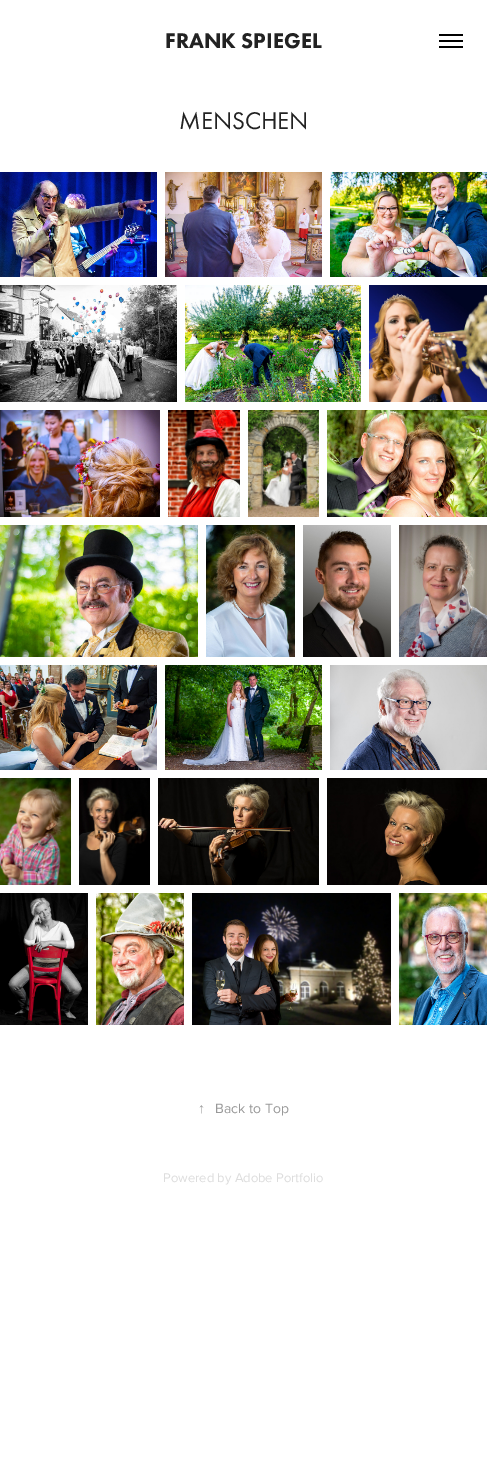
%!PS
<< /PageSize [487 1476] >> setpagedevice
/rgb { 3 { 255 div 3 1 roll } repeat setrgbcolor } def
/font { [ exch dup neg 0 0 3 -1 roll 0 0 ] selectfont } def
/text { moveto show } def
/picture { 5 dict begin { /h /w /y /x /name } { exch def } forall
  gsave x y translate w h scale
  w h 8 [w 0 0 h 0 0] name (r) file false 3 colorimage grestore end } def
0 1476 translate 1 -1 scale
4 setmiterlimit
255 255 255 rgb
0 0 487 1476 rectfill
0 0 0 rgb
439 34 24 2 rectfill
439 40 24 2 rectfill
439 46 24 2 rectfill
(img_01.rgb) 0 172 157 105 picture
(img_02.rgb) 165 172 157 105 picture
(img_03.rgb) 330 172 157 105 picture
(img_04.rgb) 0 285 177 117 picture
(img_05.rgb) 185 285 176 117 picture
(img_06.rgb) 369 285 118 117 picture
(img_07.rgb) 0 410 160 107 picture
(img_08.rgb) 168 410 72 107 picture
(img_09.rgb) 248 410 71 107 picture
(img_10.rgb) 327 410 160 107 picture
(img_11.rgb) 0 525 198 132 picture
(img_12.rgb) 206 525 89 132 picture
(img_13.rgb) 303 525 88 132 picture
(img_14.rgb) 399 525 88 132 picture
(img_15.rgb) 0 665 157 105 picture
(img_16.rgb) 165 665 157 105 picture
(img_17.rgb) 330 665 157 105 picture
(img_18.rgb) 0 778 71 107 picture
(img_19.rgb) 79 778 71 107 picture
(img_20.rgb) 158 778 161 107 picture
(img_21.rgb) 327 778 160 107 picture
(img_22.rgb) 0 893 88 132 picture
(img_23.rgb) 96 893 88 132 picture
(img_24.rgb) 192 893 199 132 picture
(img_25.rgb) 399 893 88 132 picture
/FuturaPT-Black 22 font
34 34 34 rgb
(FRANK SPIEGEL) 165 48 text
/FuturaPT-Regular 25 font
(MENSCHEN) 179 129 text
/LiberationSerif-Regular 14 font
153 153 153 rgb
(↑) 198 1113 text
/ProximaNova-Regular 14 font
(Back to Top) 215 1113 text
/ProximaNova-Regular 13 font
221 221 221 rgb
(Powered by Adobe Portfolio) 163 1182 text
showpage
